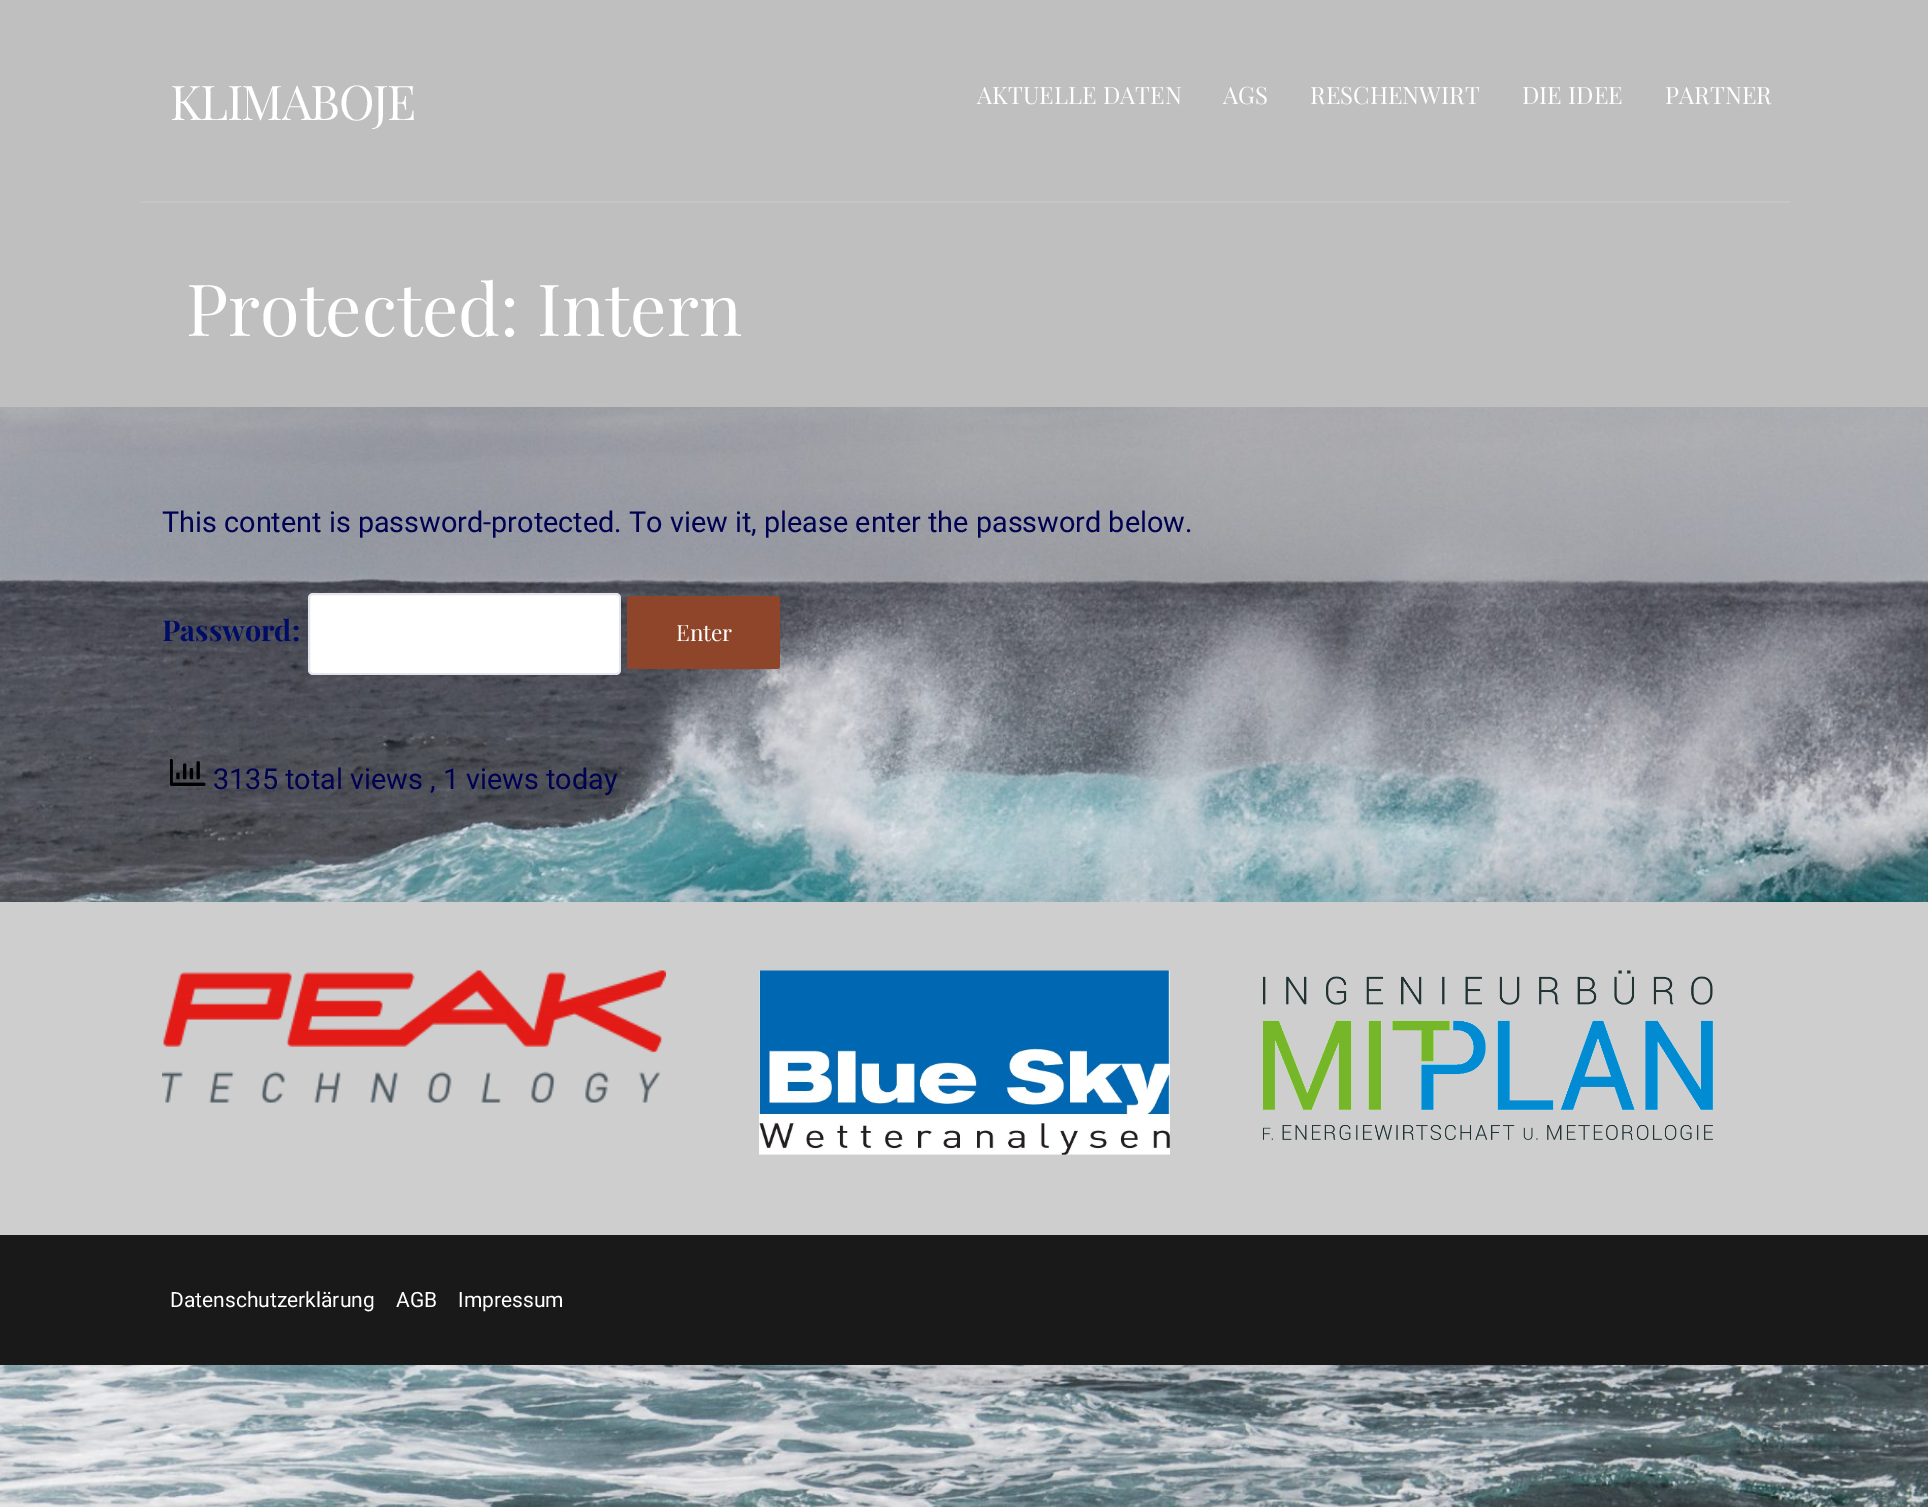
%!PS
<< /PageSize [1928 1507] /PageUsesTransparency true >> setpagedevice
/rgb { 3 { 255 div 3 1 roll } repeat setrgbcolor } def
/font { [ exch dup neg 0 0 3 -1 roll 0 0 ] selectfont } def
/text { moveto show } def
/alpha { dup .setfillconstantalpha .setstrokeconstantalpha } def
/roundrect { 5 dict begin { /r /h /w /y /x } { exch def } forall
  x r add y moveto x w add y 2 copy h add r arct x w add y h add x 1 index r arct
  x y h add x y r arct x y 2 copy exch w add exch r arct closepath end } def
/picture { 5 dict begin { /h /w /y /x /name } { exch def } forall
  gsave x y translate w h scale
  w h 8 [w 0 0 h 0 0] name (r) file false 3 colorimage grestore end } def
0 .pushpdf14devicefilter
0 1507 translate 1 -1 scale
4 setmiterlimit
255 255 255 rgb
0 0 1928 1507 rectfill
(img_01.rgb) 0 407 1928 1100 picture
191 191 191 rgb
0 0 1928 407 rectfill
197 197 197 rgb
140 201 1650 2 rectfill
255 255 255 rgb
308 593 313 82 5 roundrect fill
0.1 alpha
0 1 81 rgb
2 setlinewidth
309 594 311 80 4 roundrect stroke
1 alpha
142 69 42 rgb
627 596 153 73 3 roundrect fill
(img_02.rgb) 170 759 36 27 picture
206 206 206 rgb
0 902 1928 333 rectfill
(img_03.rgb) 162 970 504 133 picture
(img_04.rgb) 759 970 411 185 picture
(img_05.rgb) 1263 970 450 170 picture
25 25 25 rgb
0 1235 1928 130 rectfill
/PlayfairDisplay-Regular 48 font
255 255 255 rgb
170 120 moveto -1.5 0 (KLIMABOJE) ashow
/PlayfairDisplay-Regular 24 font
(AKTUELLE DATEN) 977 104 text
(AGS) 1223 104 text
(RESCHENWIRT) 1310 104 text
(DIE IDEE) 1522 104 text
(PARTNER) 1665 104 text
/PlayfairDisplay-Regular 72 font
(Protected: Intern) 186 336 text
/Roboto-Regular 28.8 font
0 1 81 rgb
(This content is password-protected. To view it, please enter the password below.) 162 532 text
/PlayfairDisplay-Bold 28.8 font
0 13 102 rgb
(Password:) 162 641 text
/PlayfairDisplay-Regular 22.5 font
255 255 255 rgb
(Enter) 676 641 text
/Roboto-Regular 28.8 font
0 1 81 rgb
(3135 total views , 1 views today) 213 789 text
/Roboto-Regular 21 font
255 255 255 rgb
(Datenschutzerklärung) 170 1307 text
(AGB) 396 1307 text
(Impressum) 458 1307 text
.poppdf14devicefilter showpage
